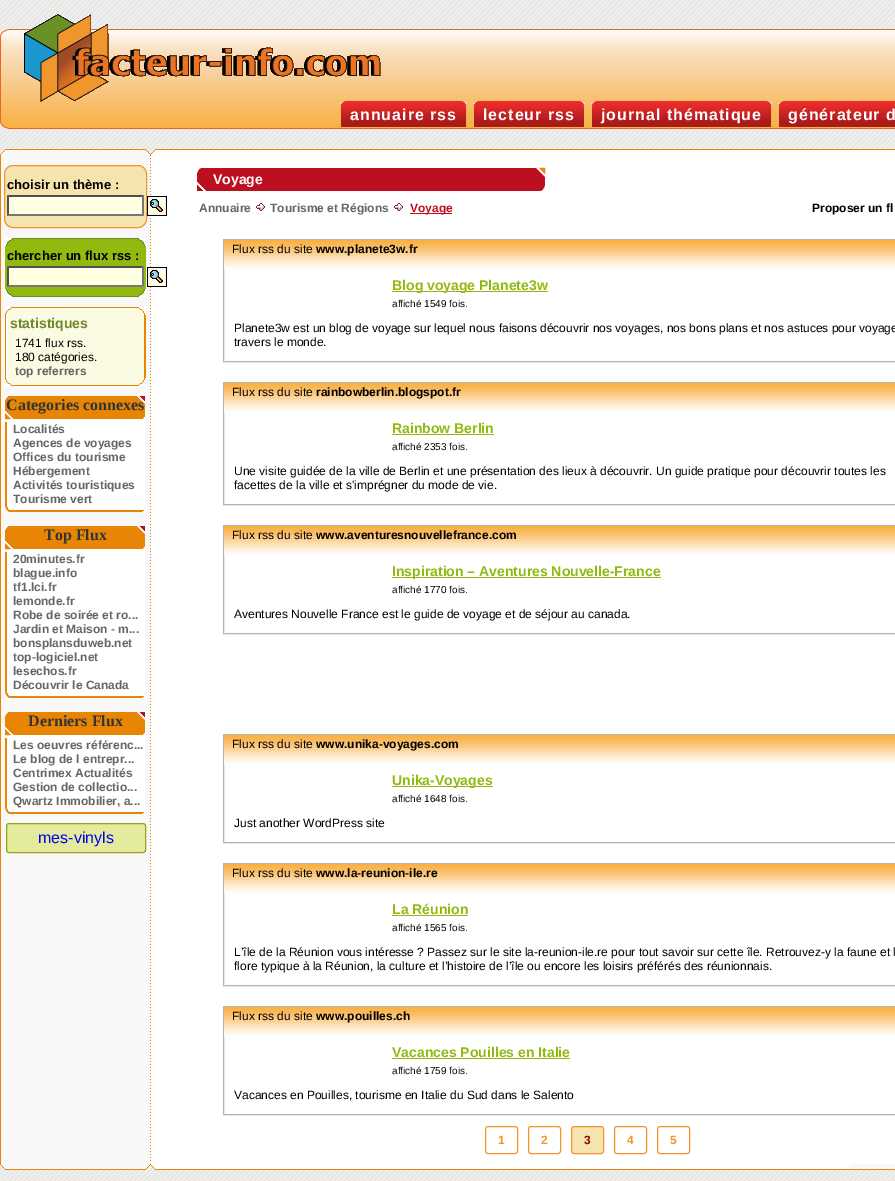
%!PS
<< /PageSize [895 1181] >> setpagedevice
/rgb { 3 { 255 div 3 1 roll } repeat setrgbcolor } def
/font { [ exch dup neg 0 0 3 -1 roll 0 0 ] selectfont } def
/text { moveto show } def
/roundrect { 5 dict begin { /r /h /w /y /x } { exch def } forall
  x r add y moveto x w add y 2 copy h add r arct x w add y h add x 1 index r arct
  x y h add x y r arct x y 2 copy exch w add exch r arct closepath end } def
/picture { 5 dict begin { /h /w /y /x /name } { exch def } forall
  gsave x y translate w h scale
  w h 8 [w 0 0 h 0 0] name (r) file false 3 colorimage grestore end } def
0 1181 translate 1 -1 scale
4 setmiterlimit
255 255 255 rgb
0 0 895 1181 rectfill
(img_01.rgb) 0 0 895 1181 picture
(img_02.rgb) 0 29 895 100 picture
(img_04.rgb) 340 101 22 26 picture
(img_05.rgb) 362 101 105 26 picture
(img_03.rgb) 24 14 357 88 picture
(img_04.rgb) 473 101 22 26 picture
(img_06.rgb) 495 101 90 26 picture
(img_04.rgb) 591 101 22 26 picture
(img_07.rgb) 613 101 159 26 picture
(img_04.rgb) 778 101 22 26 picture
(img_08.rgb) 800 101 95 26 picture
(img_09.rgb) 0 149 895 6 picture
(img_10.rgb) 0 155 895 1009 picture
246 228 174 rgb
4.5 165.5 142 62 8.5 roundrect gsave fill grestore
241 148 45 rgb
stroke
254 254 226 rgb
7 195 137 21 rectfill
79 79 79 rgb
7 195 moveto 137 0 rlineto -2 2 rlineto -133 0 rlineto closepath fill
118 118 118 rgb
144 195 moveto 0 21 rlineto -2 -2 rlineto 0 -17 rlineto closepath fill
144 216 moveto -137 0 rlineto 2 -2 rlineto 133 0 rlineto closepath fill
79 79 79 rgb
7 216 moveto 0 -21 rlineto 2 2 rlineto 0 17 rlineto closepath fill
254 254 226 rgb
149 198 16 16 rectfill
(img_11.rgb) 147 196 20 20 picture
146 185 16 rgb
5 246 141 43 rectfill
255 255 255 rgb
5 238 141 8 rectfill
(img_12.rgb) 6 238 139 8 picture
254 254 226 rgb
7 266 137 21 rectfill
79 79 79 rgb
7 266 moveto 137 0 rlineto -2 2 rlineto -133 0 rlineto closepath fill
118 118 118 rgb
144 266 moveto 0 21 rlineto -2 -2 rlineto 0 -17 rlineto closepath fill
144 287 moveto -137 0 rlineto 2 -2 rlineto 133 0 rlineto closepath fill
79 79 79 rgb
7 287 moveto 0 -21 rlineto 2 2 rlineto 0 17 rlineto closepath fill
254 254 226 rgb
149 269 16 16 rectfill
(img_11.rgb) 147 267 20 20 picture
255 255 255 rgb
5 289 141 8 rectfill
(img_13.rgb) 6 289 139 8 picture
(img_14.rgb) 5 315 141 63 picture
5 307 141 8 rectfill
(img_15.rgb) 5 307 140 8 picture
5 378 141 8 rectfill
(img_16.rgb) 5 378 140 8 picture
(img_17.rgb) 5 396 140 26 picture
(img_18.rgb) 5 422 140 84 picture
(img_19.rgb) 5 506 139 7 picture
(img_17.rgb) 5 526 140 26 picture
(img_20.rgb) 5 552 140 140 picture
(img_19.rgb) 5 692 139 7 picture
(img_17.rgb) 5 712 140 26 picture
(img_21.rgb) 5 738 140 70 picture
(img_19.rgb) 5 808 139 7 picture
229 235 156 rgb
6.5 823.5 139 29 2.5 roundrect gsave fill grestore
152 162 27 rgb
stroke
(img_22.rgb) 197 167 349 24 picture
(img_23.rgb) 256 203 9 8 picture
(img_23.rgb) 394 203 9 8 picture
188 16 32 rgb
410 213 42 1 rectfill
179 179 179 rgb
223.5 239.5 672 122 rectstroke
(img_24.rgb) 224 240 671 29 picture
146 185 16 rgb
392 291 156 1 rectfill
179 179 179 rgb
223.5 382.5 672 122 rectstroke
(img_24.rgb) 224 383 671 29 picture
146 185 16 rgb
392 434 102 1 rectfill
179 179 179 rgb
223.5 525.5 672 108 rectstroke
(img_24.rgb) 224 526 671 29 picture
146 185 16 rgb
392 577 269 1 rectfill
179 179 179 rgb
223.5 734.5 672 108 rectstroke
(img_24.rgb) 224 735 671 29 picture
146 185 16 rgb
392 786 101 1 rectfill
179 179 179 rgb
223.5 863.5 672 122 rectstroke
(img_24.rgb) 224 864 671 29 picture
146 185 16 rgb
392 915 76 1 rectfill
179 179 179 rgb
223.5 1006.5 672 108 rectstroke
(img_24.rgb) 224 1007 671 29 picture
146 185 16 rgb
392 1058 178 1 rectfill
242 149 45 rgb
485.5 1126.5 32 27 2.5 roundrect stroke
528.5 1126.5 32 27 2.5 roundrect stroke
246 228 174 rgb
571.5 1126.5 32 27 2.5 roundrect gsave fill grestore
242 149 45 rgb
stroke
614.5 1126.5 32 27 2.5 roundrect stroke
657.5 1126.5 32 27 2.5 roundrect stroke
246 246 246 rgb
150 1163 1 1 rectfill
(img_25.rgb) 0 1164 895 6 picture
/LiberationSans-Bold 16 font
255 255 255 rgb
350 120 moveto 1 0 (annuaire rss) ashow
483 120 moveto 1 0 (lecteur rss) ashow
601 120 moveto 1 0 (journal thématique) ashow
788 120 moveto 1 0 (générateur d) ashow
/LiberationSans-Bold 13 font
0 0 0 rgb
(choisir un thème :) 7 189 text
(chercher un flux rss :) 7 260 text
/LiberationSans-Bold 14 font
114 134 45 rgb
(statistiques) 10 328 text
/LiberationSans-Regular 12 font
0 0 0 rgb
(1741 flux rss.) 15 347 text
(180 catégories.) 15 361 text
/LiberationSans-Bold 12 font
102 102 102 rgb
(top referrers) 15 375 text
/LiberationSerif-Bold 16 font
51 51 51 rgb
(Categories connexes) 6 410 text
/LiberationSans-Bold 12 font
102 102 102 rgb
(Localités) 13 433 text
(Agences de voyages) 13 447 text
(Offices du tourisme) 13 461 text
(Hébergement) 13 475 text
(Activités touristiques) 13 489 text
(Tourisme vert) 13 503 text
/LiberationSerif-Bold 16 font
51 51 51 rgb
(Top Flux) 44 540 text
/LiberationSans-Bold 12 font
102 102 102 rgb
(20minutes.fr) 13 563 text
(blague.info) 13 577 text
(tf1.lci.fr) 13 591 text
(lemonde.fr) 13 605 text
(Robe de soirée et ro...) 13 619 text
(Jardin et Maison - m...) 13 633 text
(bonsplansduweb.net) 13 647 text
(top-logiciel.net) 13 661 text
(lesechos.fr) 13 675 text
(Découvrir le Canada) 13 689 text
/LiberationSerif-Bold 16 font
51 51 51 rgb
(Derniers Flux) 28 726 text
/LiberationSans-Bold 12 font
102 102 102 rgb
(Les oeuvres référenc...) 13 749 text
(Le blog de l entrepr...) 13 763 text
(Centrimex Actualités) 13 777 text
(Gestion de collectio...) 13 791 text
(Qwartz Immobilier, a...) 13 805 text
/LiberationSans-Regular 16 font
0 0 238 rgb
(mes-vinyls) 38 843 text
/LiberationSans-Bold 14 font
255 255 255 rgb
(Voyage) 213 184 text
/LiberationSans-Bold 12 font
102 102 102 rgb
(Annuaire) 199 212 text
(Tourisme et Régions) 270 212 text
188 16 32 rgb
(Voyage) 410 212 text
0 0 0 rgb
(Proposer un fl) 812 212 text
/LiberationSans-Regular 12 font
(Flux rss du site) 232 253 text
/LiberationSans-Bold 12 font
(www.planete3w.fr) 316 253 text
/LiberationSans-Bold 14 font
146 185 16 rgb
(Blog voyage Planete3w) 392 290 text
/LiberationSans-Regular 10 font
0 0 0 rgb
(affiché 1549 fois.) 392 307 text
/LiberationSans-Regular 12 font
(Planete3w est un blog de voyage sur lequel nous faisons découvrir nos voyages, nos bons plans et nos astuces pour voyage) 234 332 text
(travers le monde.) 234 346 text
(Flux rss du site) 232 396 text
/LiberationSans-Bold 12 font
(rainbowberlin.blogspot.fr) 316 396 text
/LiberationSans-Bold 14 font
146 185 16 rgb
(Rainbow Berlin) 392 433 text
/LiberationSans-Regular 10 font
0 0 0 rgb
(affiché 2353 fois.) 392 450 text
/LiberationSans-Regular 12 font
(Une visite guidée de la ville de Berlin et une présentation des lieux à découvrir. Un guide pratique pour découvrir toutes les) 234 475 text
(facettes de la ville et s'imprégner du mode de vie.) 234 489 text
(Flux rss du site) 232 539 text
/LiberationSans-Bold 12 font
(www.aventuresnouvellefrance.com) 316 539 text
/LiberationSans-Bold 14 font
146 185 16 rgb
(Inspiration – Aventures Nouvelle-France) 392 576 text
/LiberationSans-Regular 10 font
0 0 0 rgb
(affiché 1770 fois.) 392 593 text
/LiberationSans-Regular 12 font
(Aventures Nouvelle France est le guide de voyage et de séjour au canada.) 234 618 text
(Flux rss du site) 232 748 text
/LiberationSans-Bold 12 font
(www.unika-voyages.com) 316 748 text
/LiberationSans-Bold 14 font
146 185 16 rgb
(Unika-Voyages) 392 785 text
/LiberationSans-Regular 10 font
0 0 0 rgb
(affiché 1648 fois.) 392 802 text
/LiberationSans-Regular 12 font
(Just another WordPress site) 234 827 text
(Flux rss du site) 232 877 text
/LiberationSans-Bold 12 font
(www.la-reunion-ile.re) 316 877 text
/LiberationSans-Bold 14 font
146 185 16 rgb
(La Réunion) 392 914 text
/LiberationSans-Regular 10 font
0 0 0 rgb
(affiché 1565 fois.) 392 931 text
/LiberationSans-Regular 12 font
(L’île de la Réunion vous intéresse ? Passez sur le site la-reunion-ile.re pour tout savoir sur cette île. Retrouvez-y la faune et l) 234 956 text
(flore typique à la Réunion, la culture et l’histoire de l’île ou encore les loisirs préférés des réunionnais.) 234 970 text
(Flux rss du site) 232 1020 text
/LiberationSans-Bold 12 font
(www.pouilles.ch) 316 1020 text
/LiberationSans-Bold 14 font
146 185 16 rgb
(Vacances Pouilles en Italie) 392 1057 text
/LiberationSans-Regular 10 font
0 0 0 rgb
(affiché 1759 fois.) 392 1074 text
/LiberationSans-Regular 12 font
(Vacances en Pouilles, tourisme en Italie du Sud dans le Salento) 234 1099 text
/LiberationSans-Bold 12 font
242 149 45 rgb
(1) 498 1144 text
(2) 541 1144 text
153 0 0 rgb
(3) 584 1144 text
242 149 45 rgb
(4) 627 1144 text
(5) 670 1144 text
showpage
